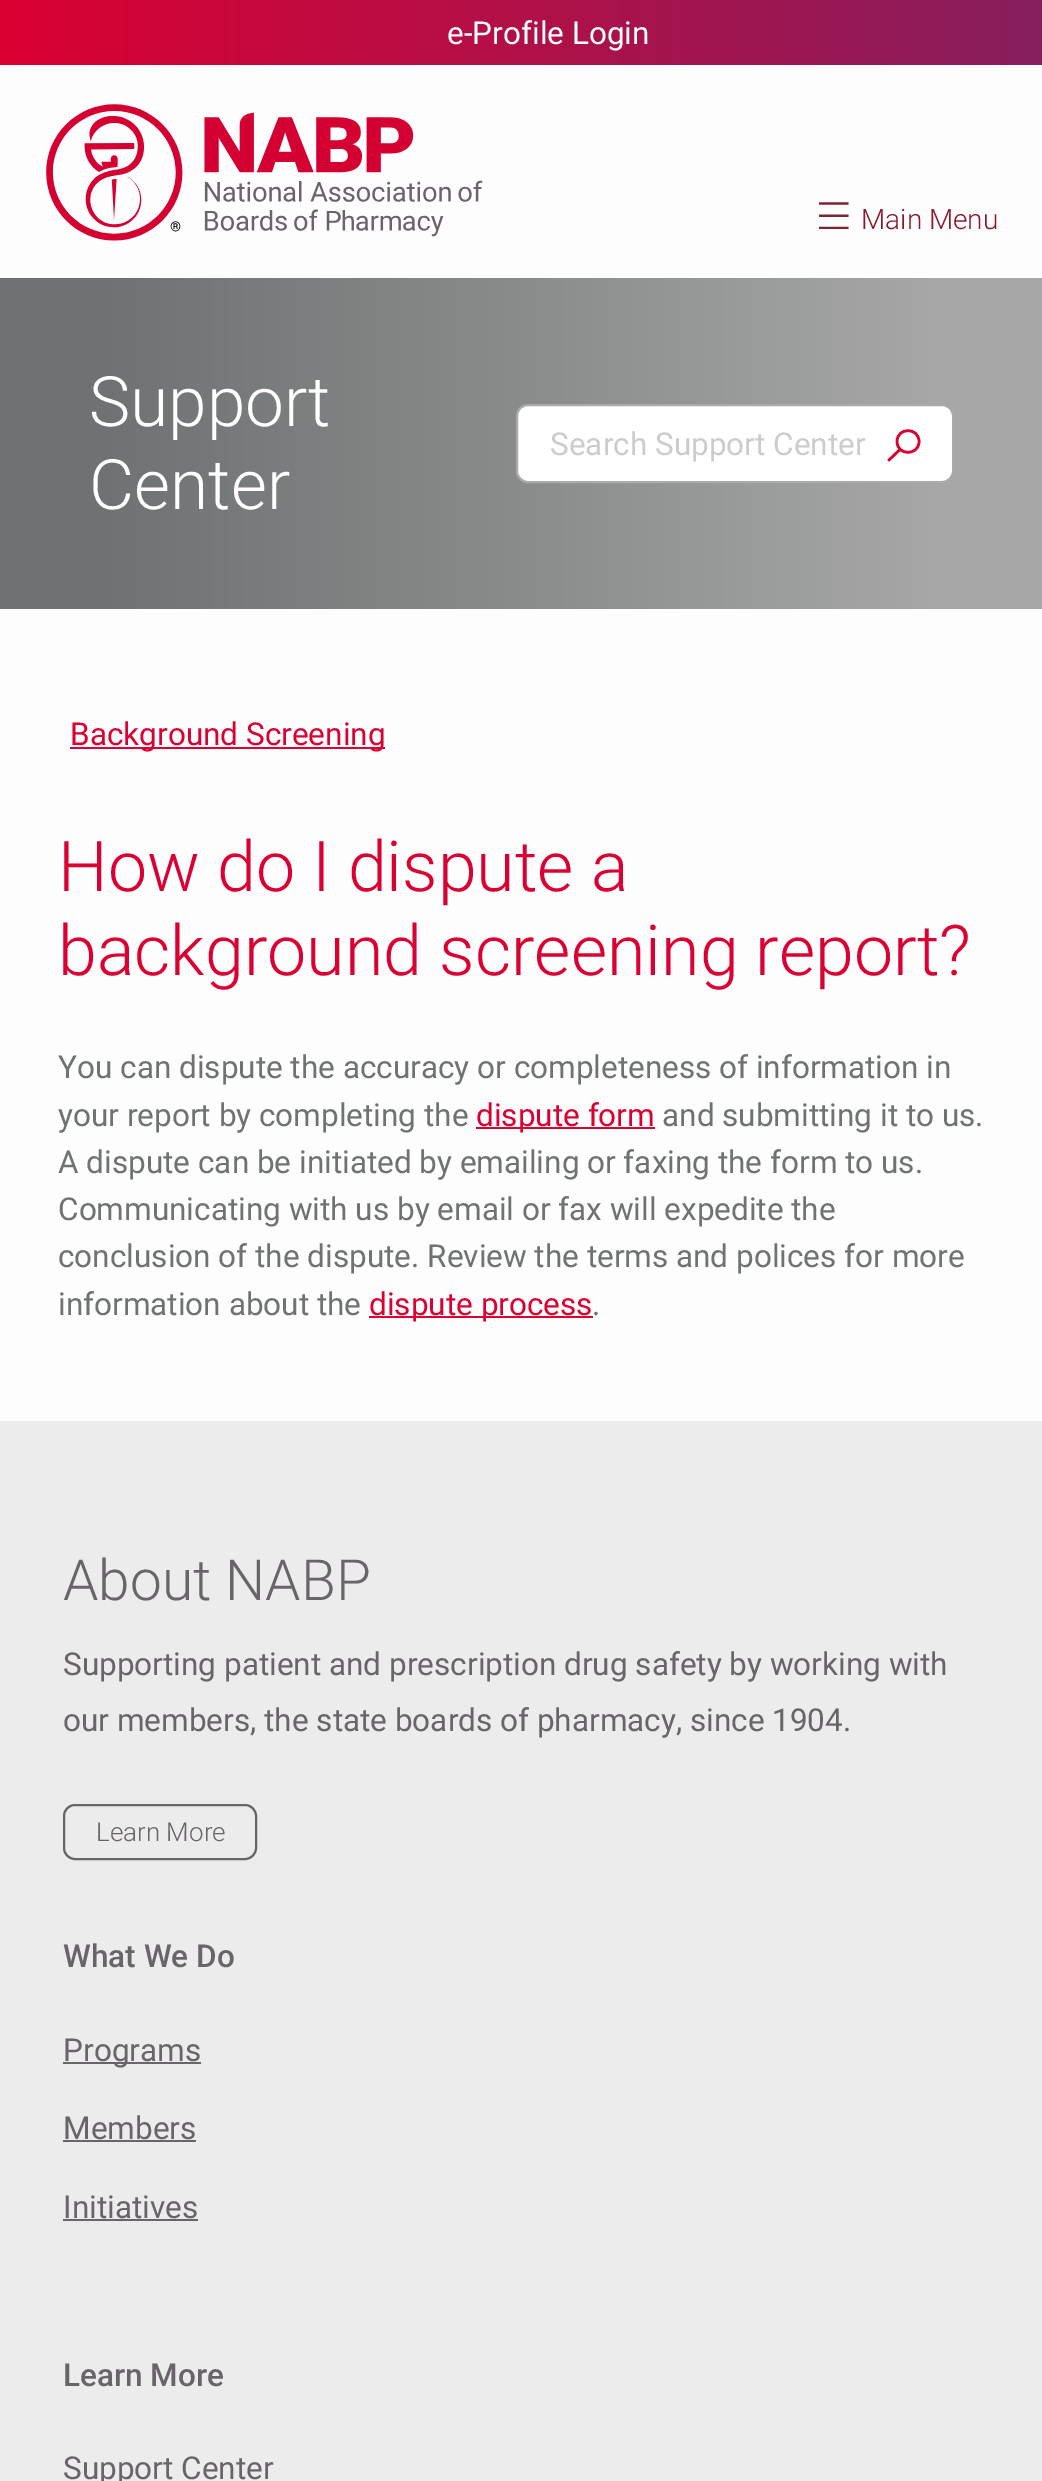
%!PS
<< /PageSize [1042 2481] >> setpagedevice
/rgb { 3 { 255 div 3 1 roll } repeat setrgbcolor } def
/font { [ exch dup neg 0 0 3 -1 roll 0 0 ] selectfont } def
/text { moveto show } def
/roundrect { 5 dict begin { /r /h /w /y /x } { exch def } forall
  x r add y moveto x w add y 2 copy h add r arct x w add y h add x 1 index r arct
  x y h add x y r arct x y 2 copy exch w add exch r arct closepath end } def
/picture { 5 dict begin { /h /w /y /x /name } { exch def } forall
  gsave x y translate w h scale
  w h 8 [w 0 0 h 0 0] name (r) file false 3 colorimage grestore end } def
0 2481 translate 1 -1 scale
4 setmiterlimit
253 253 253 rgb
0 0 1042 2481 rectfill
gsave 0 0 moveto 1042 0 rlineto 0 65 rlineto -1042 0 rlineto closepath clip newpath
<< /ShadingType 2 /ColorSpace /DeviceRGB /Coords [0 32 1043 32] /Extend [true true] /Function << /FunctionType 2 /Domain [0 1] /C0 [0.859 0 0.196] /C1 [0.529 0.122 0.369] /N 1 >> >> shfill grestore
(img_01.rgb) 46 104 437 137 picture
(img_02.rgb) 819 202 30 27 picture
gsave 0 278 moveto 1042 0 rlineto 0 331 rlineto -1042 0 rlineto closepath clip newpath
<< /ShadingType 2 /ColorSpace /DeviceRGB /Coords [0 444 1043 444] /Extend [true true] /Function << /FunctionType 3 /Domain [0 1] /Functions [<< /FunctionType 2 /Domain [0 1] /C0 [0.431 0.447 0.447] /C1 [0.431 0.447 0.447] /N 1 >> << /FunctionType 2 /Domain [0 1] /C0 [0.431 0.447 0.447] /C1 [0.655 0.655 0.655] /N 1 >> << /FunctionType 2 /Domain [0 1] /C0 [0.655 0.655 0.655] /C1 [0.655 0.655 0.655] /N 1 >>] /Bounds [0.1 0.9] /Encode [0 1 0 1 0 1] >> >> shfill grestore
255 255 255 rgb
517 405 436 77 11 roundrect gsave fill grestore
170 170 170 rgb
2 setlinewidth
stroke
219 0 50 rgb
2.6 setlinewidth
1 setlinecap
1 setlinejoin
897 441.5 moveto 0 14.5 22 14.5 22 0 rcurveto 0 -14.5 -22 -14.5 -22 0 rcurveto closepath 900 449.5 moveto -11 10.5 rlineto stroke
70 747 315 2 rectfill
476 1127 179 2 rectfill
369 1316 224 2 rectfill
236 236 236 rgb
0 1421 1042 1060 rectfill
105 99 106 rgb
2 setlinewidth
0 setlinecap
0 setlinejoin
64 1805 192 54 11 roundrect stroke
63 2062 138 2 rectfill
63 2140 133 2 rectfill
63 2219 135 2 rectfill
/Roboto-Regular 31.5 font
255 255 255 rgb
(e-Profile Login) 447 44 text
/Roboto-Light 28 font
136 24 47 rgb
(Main Menu) 861 229 text
/Roboto-Light 69.5 font
255 255 255 rgb
(Support) 89 426 text
(Center) 89 509 text
/Roboto-Regular 31.5 font
204 204 204 rgb
(Search Support Center) 550 455 text
219 0 50 rgb
(Background Screening) 70 745 text
/Roboto-Light 70 font
(How do I dispute a) 58 891 text
(background screening report?) 58 975 text
/Roboto-Regular 31.5 font
110 114 114 rgb
(You can dispute the accuracy or completeness of information in) 58 1078 text
(your report by completing the) 58 1126 text
219 0 50 rgb
(dispute form) 476 1126 text
110 114 114 rgb
(and submitting it to us.) 662 1126 text
(A dispute can be initiated by emailing or faxing the form to us.) 58 1173 text
(Communicating with us by email or fax will expedite the) 58 1220 text
(conclusion of the dispute. Review the terms and polices for more) 58 1267 text
(information about the) 58 1315 text
219 0 50 rgb
(dispute process) 369 1315 text
110 114 114 rgb
(.) 592 1315 text
/Roboto-Light 56.75 font
105 99 106 rgb
(About NABP) 63 1600 text
/Roboto-Regular 31.5 font
(Supporting patient and prescription drug safety by working with) 63 1675 text
(our members, the state boards of pharmacy, since 1904.) 63 1731 text
/Roboto-Light 26 font
(Learn More) 96 1841 text
/Roboto-Medium 31.5 font
(What We Do) 63 1967 text
/Roboto-Regular 31.5 font
(Programs) 63 2061 text
(Members) 63 2139 text
(Initiatives) 63 2218 text
/Roboto-Medium 31.5 font
(Learn More) 63 2386 text
/Roboto-Regular 31.5 font
(Support Center) 63 2479 text
showpage
